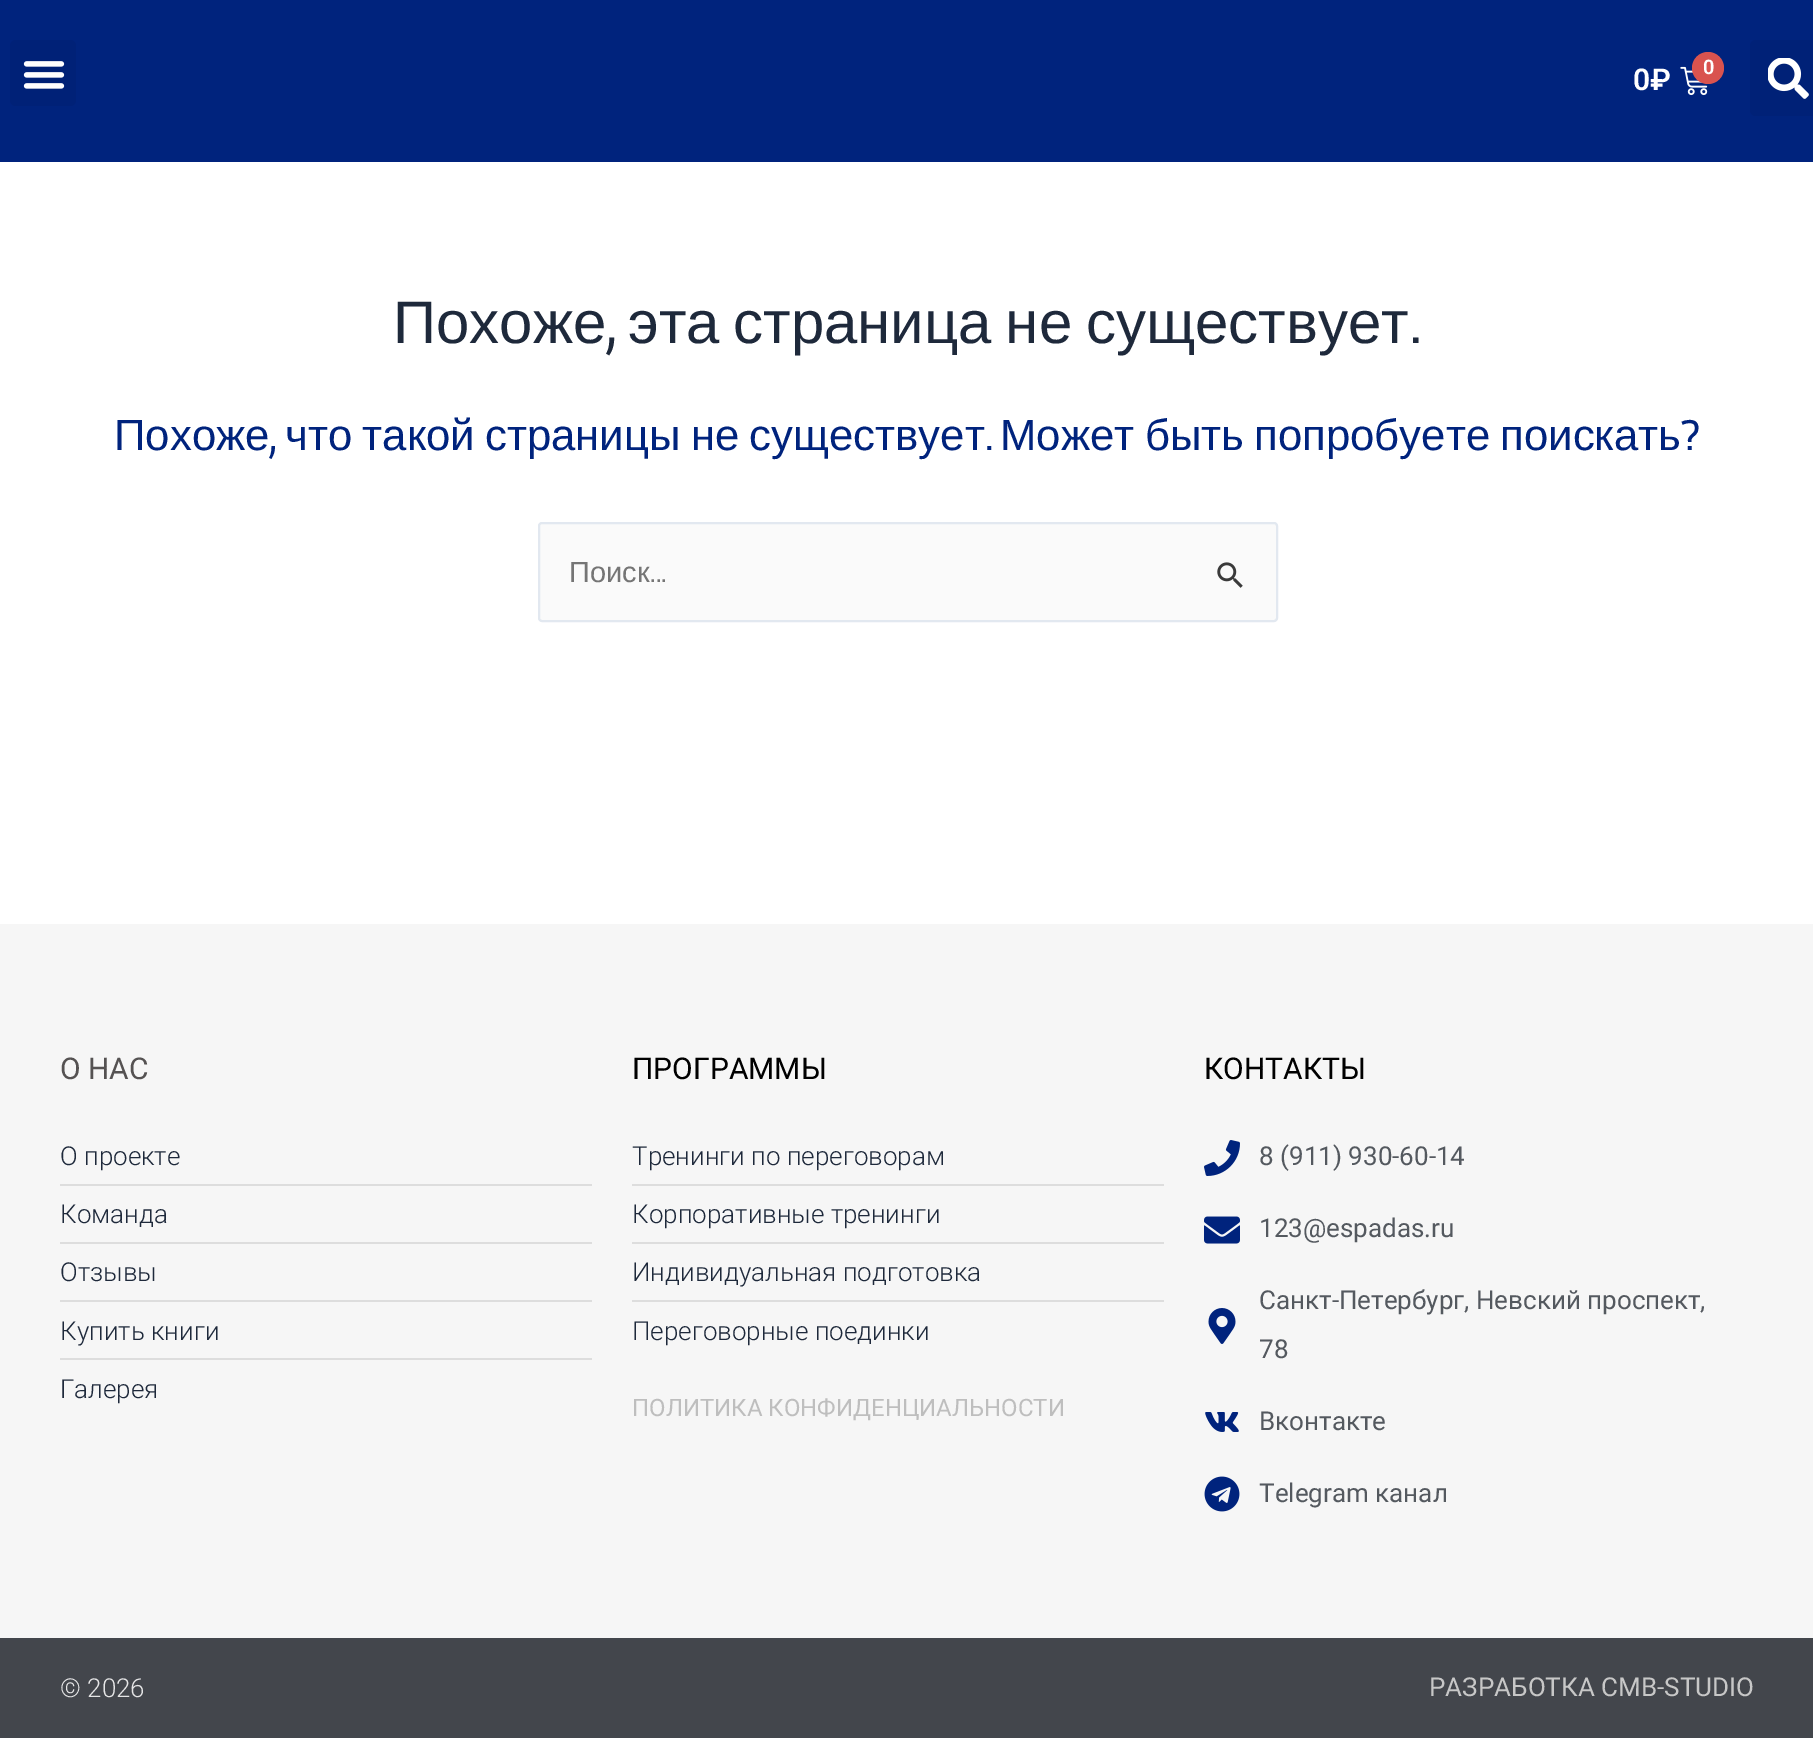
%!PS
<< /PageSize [1813 1738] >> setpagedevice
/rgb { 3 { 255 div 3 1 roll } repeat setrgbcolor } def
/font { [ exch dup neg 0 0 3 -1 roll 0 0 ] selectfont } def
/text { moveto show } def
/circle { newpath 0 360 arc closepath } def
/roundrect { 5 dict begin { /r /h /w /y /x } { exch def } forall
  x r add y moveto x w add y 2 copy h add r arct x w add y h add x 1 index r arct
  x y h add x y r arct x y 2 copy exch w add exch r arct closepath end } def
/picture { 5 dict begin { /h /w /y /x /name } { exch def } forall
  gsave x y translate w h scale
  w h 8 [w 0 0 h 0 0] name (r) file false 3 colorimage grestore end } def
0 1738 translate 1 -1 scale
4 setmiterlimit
255 255 255 rgb
0 0 1813 1738 rectfill
0 35 125 rgb
0 0 1813 162 rectfill
0 33 119 rgb
10 40 66 66 6 roundrect fill
(img_01.rgb) 23 61 42 28 picture
(img_02.rgb) 1680 66 28 30 picture
217 83 79 rgb
1708 68 16 circle fill
0 33 119 rgb
1750 40 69 76 6 roundrect fill
(img_03.rgb) 1768 58 41 41 picture
250 250 250 rgb
539 523 738 98 3 roundrect gsave fill grestore
226 232 240 rgb
2 setlinewidth
stroke
(img_04.rgb) 1217 562 26 26 picture
246 246 246 rgb
0 924 1813 714 rectfill
221 221 221 rgb
60 1184 532 2 rectfill
60 1242 532 2 rectfill
60 1300 532 2 rectfill
60 1358 532 2 rectfill
632 1184 532 2 rectfill
632 1242 532 2 rectfill
632 1300 532 2 rectfill
(img_05.rgb) 1204 1140 36 36 picture
(img_06.rgb) 1204 1216 36 28 picture
(img_07.rgb) 1208 1308 28 36 picture
(img_08.rgb) 1205 1412 34 20 picture
(img_09.rgb) 1204 1476 36 36 picture
67 70 76 rgb
0 1638 1813 100 rectfill
/Roboto-SemiBold 30 font
255 255 255 rgb
(0₽) 1633 90 text
/Roboto-SemiBold 20 font
(0) 1703 74 text
/LiberationSans-Regular 60 font
30 41 59 rgb
(Похоже) 393 343 text
/InriaSans-Regular 60 font
(,) 606 343 text
/LiberationSans-Regular 60 font
628 343 moveto -3 0 32 (эта страница не существует) widthshow
/InriaSans-Regular 60 font
(.) 1410 343 text
/LiberationSans-Regular 43.75 font
0 35 125 rgb
(Похоже) 114 450 text
285 450 moveto -2 0 32 (что такой страницы не существует) widthshow
1000 450 moveto -2 0 32 (Может быть попробуете поискать) widthshow
/InriaSans-Regular 43.75 font
(?) 1681 450 text
(,) 269 450 text
(.) 985 450 text
/LiberationSans-Regular 29 font
117 117 117 rgb
(Поиск) 569 582 text
/InriaSans-Regular 29 font
(...) 650 582 text
/Roboto-Regular 30 font
85 82 82 rgb
(О НАС) 60 1079 text
/Roboto-Light 26 font
30 41 59 rgb
(О проекте) 60 1165 text
(Команда) 60 1223 text
(Отзывы) 60 1281 text
(Купить книги) 60 1340 text
(Галерея) 60 1398 text
/Roboto-Regular 30 font
0 0 0 rgb
(ПРОГРАММЫ) 632 1079 text
/Roboto-Light 26 font
30 41 59 rgb
(Тренинги по переговорам) 632 1165 text
(Корпоративные тренинги) 632 1223 text
(Индивидуальная подготовка) 632 1281 text
(Переговорные поединки) 632 1340 text
/Roboto-Regular 24 font
190 190 190 rgb
(ПОЛИТИКА КОНФИДЕНЦИАЛЬНОСТИ) 632 1416 text
/Roboto-Regular 30 font
0 0 0 rgb
(КОНТАКТЫ) 1204 1079 text
/Roboto-Regular 26 font
84 89 95 rgb
(8 \(911\) 930-60-14) 1259 1165 text
(123@espadas.ru) 1259 1237 text
(Санкт-Петербург, Невский проспект,) 1259 1309 text
(78) 1259 1358 text
(Вконтакте) 1259 1430 text
(Telegram канал) 1259 1502 text
/Roboto-Light 26 font
229 229 230 rgb
(© 2026) 60 1697 text
/Roboto-Regular 26 font
199 199 199 rgb
(РАЗРАБОТКА CMB-STUDIO) 1429 1696 text
showpage
